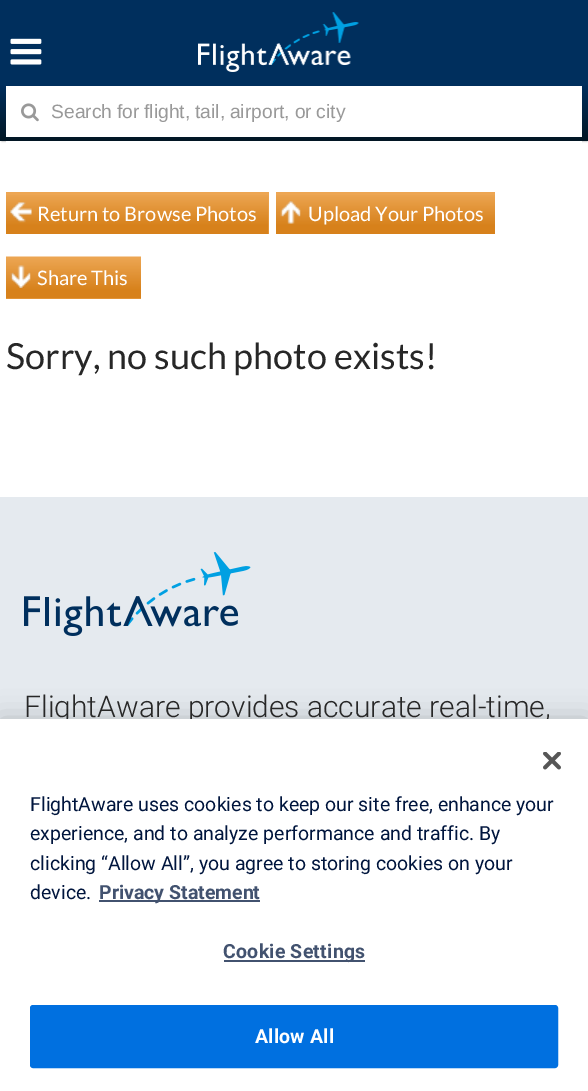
%!PS
<< /PageSize [588 1091] /PageUsesTransparency true >> setpagedevice
/rgb { 3 { 255 div 3 1 roll } repeat setrgbcolor } def
/font { [ exch dup neg 0 0 3 -1 roll 0 0 ] selectfont } def
/text { moveto show } def
/alpha { dup .setfillconstantalpha .setstrokeconstantalpha } def
/roundrect { 5 dict begin { /r /h /w /y /x } { exch def } forall
  x r add y moveto x w add y 2 copy h add r arct x w add y h add x 1 index r arct
  x y h add x y r arct x y 2 copy exch w add exch r arct closepath end } def
/shadow { 12 dict begin { /a /b /q /h /w /y /x } { exch def } forall gsave /was 0 def
  9 -2 -9 { dup b mul 4 div /e exch def 1 sub .425 mul 2.718 exch exp 1 add a .99 .min exch div /now exch def
    1 1 now sub 1 was sub div sub alpha /was now def
    w h .min e 2 mul add 0 gt { x e sub y e sub w e 2 mul add h e 2 mul add
      q e add b .6 mul add w h .min 2 div e add .min 0 .max roundrect fill } if } for grestore end } def
/picture { 5 dict begin { /h /w /y /x /name } { exch def } forall
  gsave x y translate w h scale
  w h 8 [w 0 0 h 0 0] name (r) file false 3 colorimage grestore end } def
0 .pushpdf14devicefilter
0 1091 translate 1 -1 scale
4 setmiterlimit
255 255 255 rgb
0 0 588 1091 rectfill
136 136 136 rgb
2 3 585 138 0 1 1 shadow
gsave 0 0 moveto 588 0 rlineto 0 141 rlineto -588 0 rlineto closepath clip newpath
<< /ShadingType 2 /ColorSpace /DeviceRGB /Coords [294 0 294 141] /Extend [true true] /Function << /FunctionType 3 /Domain [0 1] /Functions [<< /FunctionType 2 /Domain [0 1] /C0 [0 0.184 0.365] /C1 [0 0.184 0.365] /N 1 >> << /FunctionType 2 /Domain [0 1] /C0 [0 0.184 0.365] /C1 [0.008 0.086 0.141] /N 1 >>] /Bounds [0.6] /Encode [0 1 0 1] >> >> shfill grestore
(img_01.rgb) 10 38 32 27 picture
(img_02.rgb) 198 12 161 60 picture
255 255 255 rgb
6 86 576 51 rectfill
(img_03.rgb) 21 103 18 19 picture
6 141 576 2 rectfill
237 166 83 rgb
6 192 263 42 rectfill
(img_04.rgb) 6 195 263 39 picture
(img_05.rgb) 10 202 22 21 picture
276 192 219 3 rectfill
(img_06.rgb) 276 195 219 39 picture
(img_07.rgb) 280 201 21 23 picture
6 298 135 1 rectfill
(img_08.rgb) 6 256 135 43 picture
(img_09.rgb) 10 265 21 23 picture
229 234 239 rgb
0 497 588 222 rectfill
(img_10.rgb) 24 552 227 84 picture
0 0 0 rgb
0 719 588 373 0 13.5 0.2 shadow
/LiberationSans-Regular 19.25 font
153 153 153 rgb
51 118 moveto -0.5 0 32 (Search for flight, tail, airport, or city) widthshow
/Lato-Regular 20 font
255 255 255 rgb
(Return to Browse Photos) 37 221 text
(Upload Your Photos) 308 221 text
(Share This) 37 285 text
/Lato-Regular 36 font
39 39 39 rgb
(Sorry, no such photo exists!) 6 369 text
/Roboto-Light 30 font
(FlightAware provides accurate real-time,) 24 717 text
255 255 255 rgb
0 719 588 372 rectfill
(img_11.rgb) 543 752 18 18 picture
/Roboto-Regular 19.5 font
0 21 61 rgb
(FlightAware uses cookies to keep our site free, enhance your) 30 811 text
(experience, and to analyze performance and traffic. By) 30 840 text
(clicking “Allow All”, you agree to storing cookies on your) 30 870 text
(device.) 30 899 text
66 82 111 rgb
99 900 161 2 rectfill
/Roboto-Bold 19.5 font
(Privacy Statement) 99 899 text
224 960 141 2 rectfill
223 958 moveto 0.25 0 (Cookie Settings) ashow
0 112 224 rgb
31 1006 526 61 2 roundrect gsave fill grestore
2 setlinewidth
stroke
255 255 255 rgb
255 1043 moveto 0.25 0 (Allow All) ashow
.poppdf14devicefilter showpage
